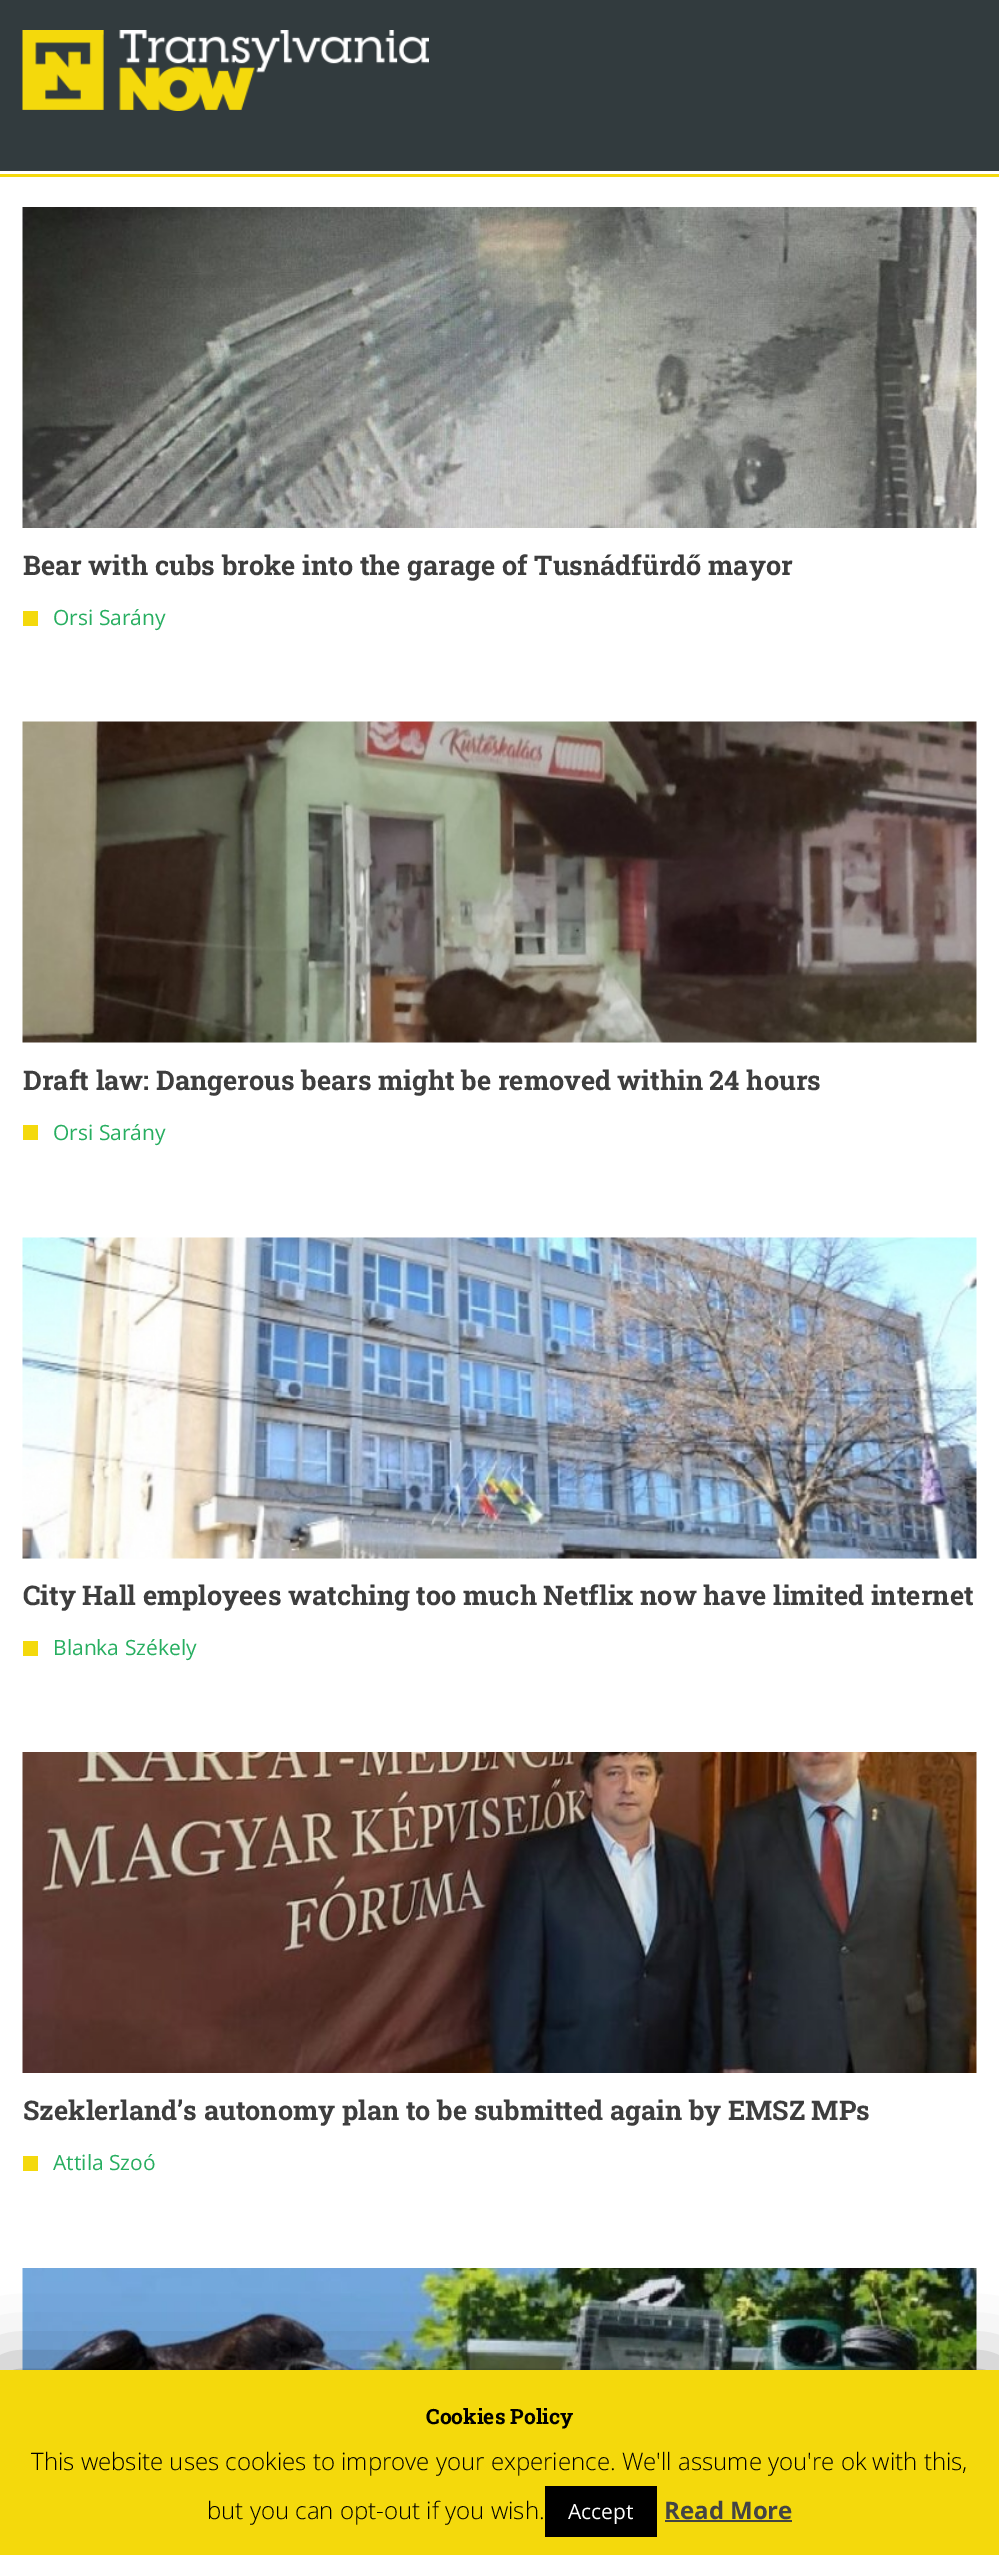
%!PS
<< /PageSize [999 2555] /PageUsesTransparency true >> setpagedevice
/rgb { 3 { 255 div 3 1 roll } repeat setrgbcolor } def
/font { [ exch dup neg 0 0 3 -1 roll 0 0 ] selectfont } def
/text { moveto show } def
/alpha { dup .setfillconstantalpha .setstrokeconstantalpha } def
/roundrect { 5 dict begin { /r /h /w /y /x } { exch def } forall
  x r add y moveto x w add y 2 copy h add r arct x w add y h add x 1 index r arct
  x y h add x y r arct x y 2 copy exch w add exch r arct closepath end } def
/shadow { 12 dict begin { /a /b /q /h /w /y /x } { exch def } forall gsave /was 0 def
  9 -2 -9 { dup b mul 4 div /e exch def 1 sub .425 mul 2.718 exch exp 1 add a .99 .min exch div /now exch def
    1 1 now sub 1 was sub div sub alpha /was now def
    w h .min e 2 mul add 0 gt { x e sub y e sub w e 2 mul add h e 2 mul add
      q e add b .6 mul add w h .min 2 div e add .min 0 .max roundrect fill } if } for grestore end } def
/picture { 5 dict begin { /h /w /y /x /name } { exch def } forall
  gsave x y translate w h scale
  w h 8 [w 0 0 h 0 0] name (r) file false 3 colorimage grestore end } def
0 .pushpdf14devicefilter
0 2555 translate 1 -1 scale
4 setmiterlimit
255 255 255 rgb
0 0 999 2555 rectfill
50 59 62 rgb
0 0 999 171 rectfill
(img_01.rgb) 22 30 407 81 picture
244 217 12 rgb
0 174 999 3 rectfill
(img_02.rgb) 22 207 955 321 picture
23 611 15 15 rectfill
(img_03.rgb) 22 721 955 322 picture
23 1125 15 15 rectfill
(img_04.rgb) 22 1237 955 322 picture
23 1641 15 15 rectfill
(img_05.rgb) 22 1752 955 321 picture
23 2156 15 15 rectfill
(img_06.rgb) 22 2268 955 102 picture
0 0 0 rgb
0 2378 999 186 0 37.5 0.5 shadow
244 217 12 rgb
0 2370 999 185 rectfill
0 0 0 rgb
545 2486 112 51 rectfill
68 68 68 rgb
665 2520 127 2 rectfill
/RobotoSlab-Bold 27 font
62 62 62 rgb
(Bear with cubs broke into the garage of Tusnádfürdő mayor) 23 575 text
/OpenSans-Regular 21 font
39 174 96 rgb
(Orsi Sarány) 53 625 text
/RobotoSlab-Bold 27 font
62 62 62 rgb
(Draft law: Dangerous bears might be removed within 24 hours) 23 1090 text
/OpenSans-Regular 21 font
39 174 96 rgb
(Orsi Sarány) 53 1140 text
/RobotoSlab-Bold 27 font
62 62 62 rgb
(City Hall employees watching too much Netflix now have limited internet) 23 1605 text
/OpenSans-Regular 21 font
39 174 96 rgb
(Blanka Székely) 53 1655 text
/RobotoSlab-Bold 27 font
62 62 62 rgb
(Szeklerland’s autonomy plan to be submitted again by EMSZ MPs) 23 2120 text
/OpenSans-Regular 21 font
39 174 96 rgb
(Attila Szoó) 53 2170 text
/RobotoSlab-Bold 21 font
0 0 0 rgb
(Cookies Policy) 426 2424 text
/OpenSans-Light 24 font
(This website uses cookies to improve your experience. We'll assume you're ok with this,) 31 2470 text
(but you can opt-out if you wish.) 207 2519 text
/OpenSans-Regular 21 font
255 255 255 rgb
(Accept) 568 2519 text
/OpenSans-Bold 24 font
68 68 68 rgb
(Read More) 664 2519 text
.poppdf14devicefilter showpage
